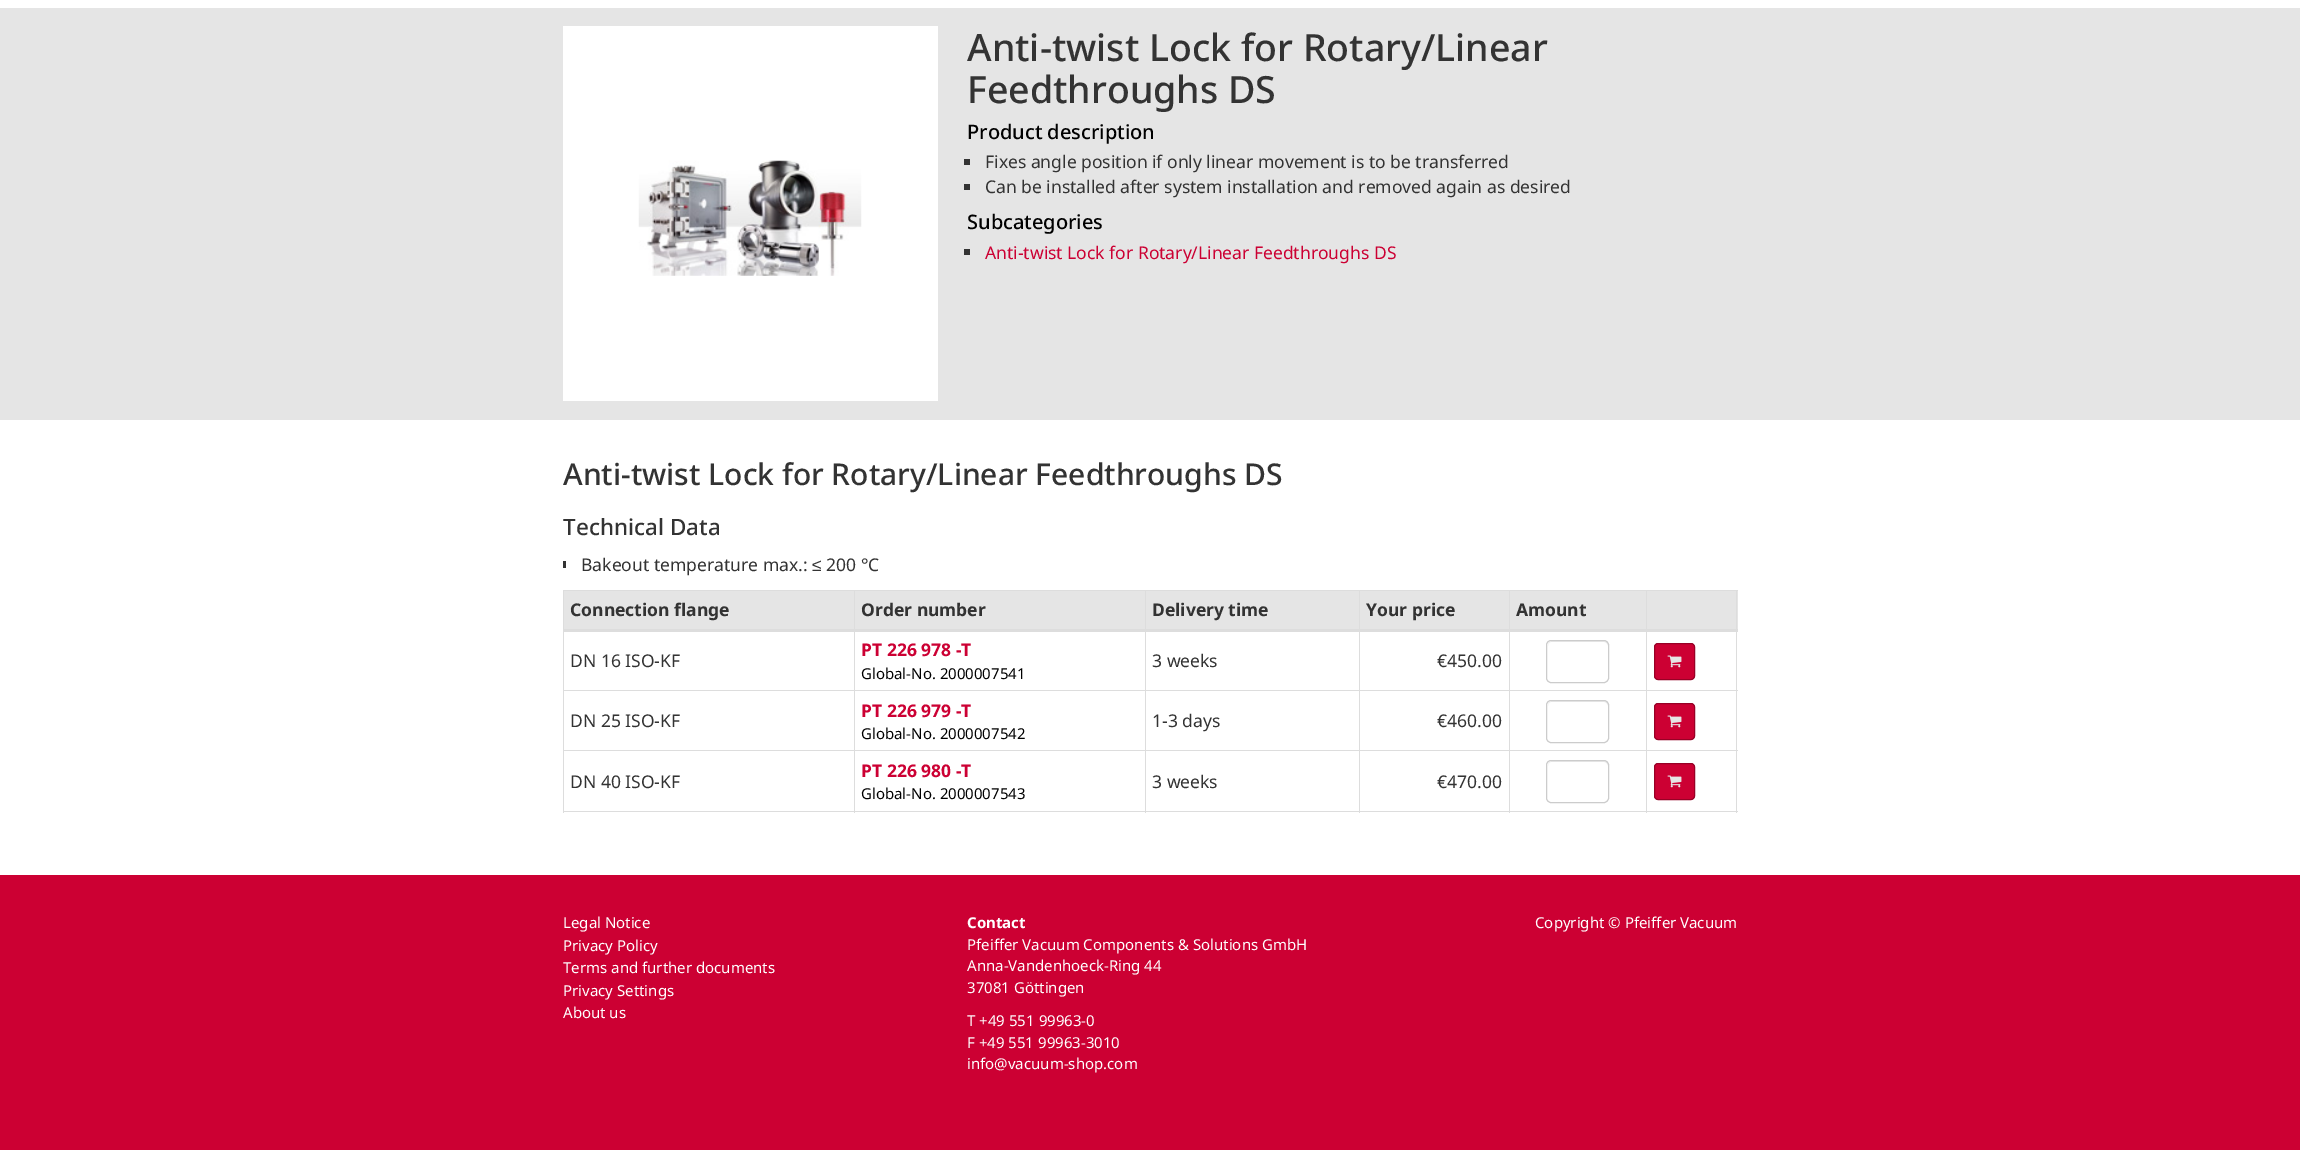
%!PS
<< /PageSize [2300 1150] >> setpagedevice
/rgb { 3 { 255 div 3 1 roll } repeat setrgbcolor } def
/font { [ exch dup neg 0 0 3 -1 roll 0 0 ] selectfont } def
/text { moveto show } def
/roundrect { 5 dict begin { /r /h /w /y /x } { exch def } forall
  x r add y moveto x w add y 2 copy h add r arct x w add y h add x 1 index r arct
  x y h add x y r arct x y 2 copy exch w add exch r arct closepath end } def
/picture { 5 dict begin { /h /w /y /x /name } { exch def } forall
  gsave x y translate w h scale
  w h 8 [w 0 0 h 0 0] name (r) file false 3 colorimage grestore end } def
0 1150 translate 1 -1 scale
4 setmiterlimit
204 0 51 rgb
0 0 2300 1150 rectfill
255 255 255 rgb
0 0 2300 875 rectfill
229 229 229 rgb
0 8 2300 412 rectfill
255 255 255 rgb
563 26 375 375 rectfill
(img_01.rgb) 638 160 224 116 picture
51 51 51 rgb
964 159 6 6 rectfill
964 184 6 6 rectfill
964 249 6 6 rectfill
563 561 3 7 rectfill
221 221 221 rgb
563 590 1175 1 rectfill
229 229 229 rgb
1647 591 91 38 rectfill
221 221 221 rgb
1736 590 1 223 rectfill
563 811 1175 1 rectfill
563 590 1 223 rectfill
1646 690 92 1 rectfill
1646 750 92 1 rectfill
1646 750 1 63 rectfill
1509 750 139 1 rectfill
1646 690 1 61 rectfill
1509 690 139 1 rectfill
1509 750 1 63 rectfill
1359 750 151 1 rectfill
1509 690 1 61 rectfill
1359 690 151 1 rectfill
1359 750 1 63 rectfill
1145 750 215 1 rectfill
1359 690 1 61 rectfill
1145 690 215 1 rectfill
1145 750 1 63 rectfill
854 750 292 1 rectfill
1145 690 1 61 rectfill
854 690 292 1 rectfill
854 750 1 63 rectfill
563 750 292 1 rectfill
854 690 1 61 rectfill
563 690 292 1 rectfill
854 590 1 101 rectfill
1145 590 1 101 rectfill
1359 590 1 101 rectfill
1509 590 1 101 rectfill
1646 590 1 101 rectfill
563 629 1175 3 rectfill
229 229 229 rgb
564 591 290 38 rectfill
855 591 290 38 rectfill
1146 591 213 38 rectfill
1360 591 149 38 rectfill
1510 591 136 38 rectfill
236 236 236 rgb
1551 642 moveto 53 0 rlineto 2 0 4 2 4 4 rcurveto 0 -7 -8 -5 -13 -5 rcurveto -34 0 rlineto -5 0 -13 -2 -13 5 rcurveto 0 -2 1 -4 3 -4 rcurveto closepath fill
204 204 204 rgb
1546.5 640.5 62 42 4.5 roundrect stroke
204 0 51 rgb
1654.5 643.5 40 36 3.5 roundrect gsave fill grestore
153 0 38 rgb
stroke
(img_02.rgb) 1667 655 15 13 picture
236 236 236 rgb
1551 702 moveto 53 0 rlineto 2 0 4 2 4 4 rcurveto 0 -7 -8 -5 -13 -5 rcurveto -34 0 rlineto -5 0 -13 -2 -13 5 rcurveto 0 -2 1 -4 3 -4 rcurveto closepath fill
204 204 204 rgb
1546.5 700.5 62 42 4.5 roundrect stroke
204 0 51 rgb
1654.5 703.5 40 36 3.5 roundrect gsave fill grestore
153 0 38 rgb
stroke
(img_02.rgb) 1667 715 15 13 picture
236 236 236 rgb
1551 762 moveto 53 0 rlineto 2 0 4 2 4 4 rcurveto 0 -7 -8 -5 -13 -5 rcurveto -34 0 rlineto -5 0 -13 -2 -13 5 rcurveto 0 -2 1 -4 3 -4 rcurveto closepath fill
204 204 204 rgb
1546.5 760.5 62 42 4.5 roundrect stroke
204 0 51 rgb
1654.5 763.5 40 36 3.5 roundrect gsave fill grestore
153 0 38 rgb
stroke
(img_02.rgb) 1667 775 15 13 picture
/NotoSans-Medium 37.5 font
51 51 51 rgb
(Anti-twist Lock for Rotary/Linear) 967 61 text
(Feedthroughs DS) 967 103 text
/NotoSans-Medium 20 font
0 0 0 rgb
(Product description) 967 139 text
/NotoSans-Regular 17.5 font
51 51 51 rgb
(Fixes angle position if only linear movement is to be transferred) 985 168 text
(Can be installed after system installation and removed again as desired) 985 193 text
/NotoSans-Medium 20 font
0 0 0 rgb
(Subcategories) 967 229 text
/NotoSans-Regular 17.5 font
204 0 51 rgb
(Anti-twist Lock for Rotary/Linear Feedthroughs DS) 985 259 text
/NotoSans-Medium 30 font
51 51 51 rgb
(Anti-twist Lock for Rotary/Linear Feedthroughs DS) 563 485 text
/NotoSans-Medium 22.5 font
(Technical Data) 563 535 text
/NotoSans-Regular 17.5 font
(Bakeout temperature max.:) 581 571 text
/LiberationSans-Regular 17.5 font
(≤) 812 571 text
/NotoSans-Regular 17.5 font
(200 °C) 826 571 text
/NotoSans-Bold 17.5 font
(Connection flange) 570 616 text
(Order number) 861 616 text
(Delivery time) 1152 616 text
(Your price) 1366 616 text
(Amount) 1516 616 text
/NotoSans-Regular 17.5 font
(DN 16 ISO-KF) 570 667 text
/NotoSans-Bold 17.5 font
204 0 51 rgb
(PT 226 978 -T) 861 656 text
/NotoSans-Regular 15 font
0 0 0 rgb
(Global-No. 2000007541) 861 679 text
/NotoSans-Regular 17.5 font
51 51 51 rgb
(3 weeks) 1152 667 text
(€450.00) 1437 667 text
(DN 25 ISO-KF) 570 727 text
/NotoSans-Bold 17.5 font
204 0 51 rgb
(PT 226 979 -T) 861 717 text
/NotoSans-Regular 15 font
0 0 0 rgb
(Global-No. 2000007542) 861 739 text
/NotoSans-Regular 17.5 font
51 51 51 rgb
(1-3 days) 1152 727 text
(€460.00) 1437 727 text
(DN 40 ISO-KF) 570 788 text
/NotoSans-Bold 17.5 font
204 0 51 rgb
(PT 226 980 -T) 861 777 text
/NotoSans-Regular 15 font
0 0 0 rgb
(Global-No. 2000007543) 861 799 text
/NotoSans-Regular 17.5 font
51 51 51 rgb
(3 weeks) 1152 788 text
(€470.00) 1437 788 text
/NotoSans-Regular 15 font
255 255 255 rgb
(Legal Notice) 563 928 text
(Privacy Policy) 563 951 text
(Terms and further documents) 563 973 text
(Privacy Settings) 563 996 text
(About us) 563 1018 text
/NotoSans-Bold 15 font
(Contact) 967 928 text
/NotoSans-Regular 15 font
(Pfeiffer Vacuum Components & Solutions GmbH) 967 950 text
(Anna-Vandenhoeck-Ring 44) 967 971 text
(37081 Göttingen) 967 993 text
(T +49 551 99963-0) 967 1026 text
(F +49 551 99963-3010) 967 1048 text
(info@vacuum-shop.com) 967 1069 text
(Copyright © Pfeiffer Vacuum) 1535 928 text
showpage
